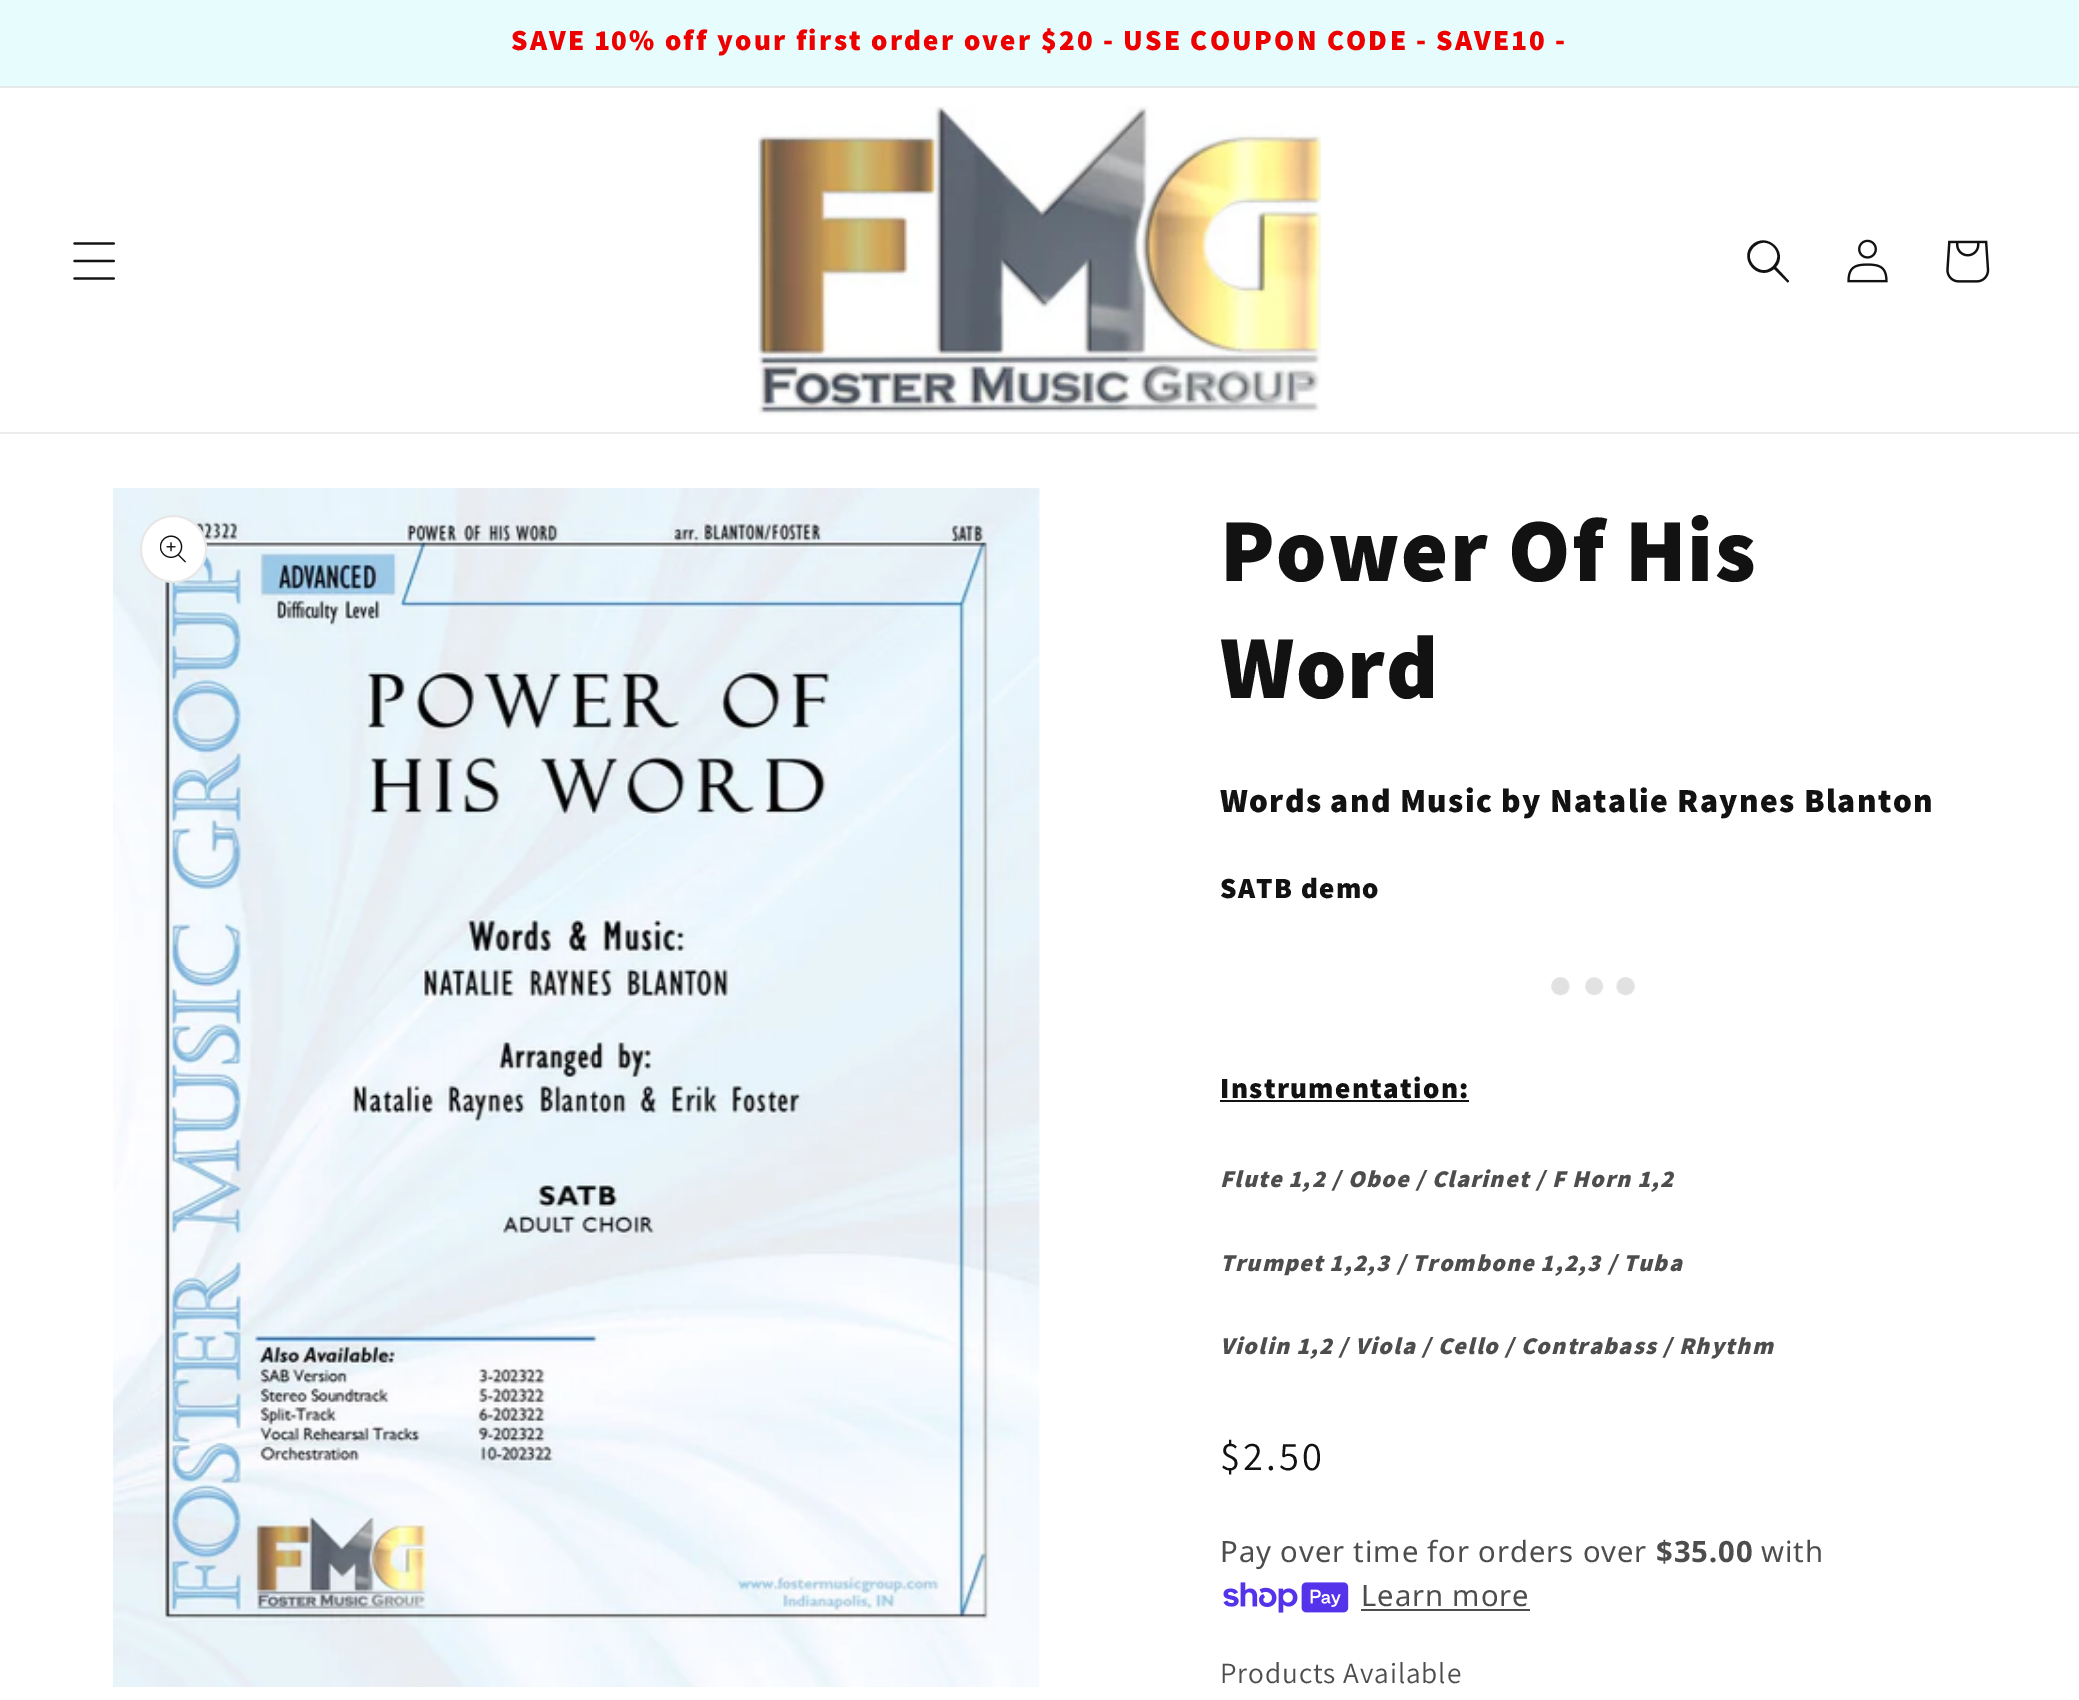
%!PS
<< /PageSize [2079 1700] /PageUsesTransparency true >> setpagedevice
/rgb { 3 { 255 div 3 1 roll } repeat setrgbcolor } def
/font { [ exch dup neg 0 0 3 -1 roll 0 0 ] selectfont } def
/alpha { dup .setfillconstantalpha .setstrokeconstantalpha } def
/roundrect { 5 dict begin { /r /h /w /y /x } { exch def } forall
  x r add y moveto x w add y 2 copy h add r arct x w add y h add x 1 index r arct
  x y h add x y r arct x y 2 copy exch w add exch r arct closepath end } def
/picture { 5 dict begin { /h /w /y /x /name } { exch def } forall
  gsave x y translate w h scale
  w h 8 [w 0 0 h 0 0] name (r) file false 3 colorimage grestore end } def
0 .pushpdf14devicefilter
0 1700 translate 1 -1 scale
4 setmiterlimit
255 255 255 rgb
0 0 2079 1700 rectfill
231 252 253 rgb
0 0 2079 86 rectfill
231 232 233 rgb
0 86 2079 2 rectfill
236 236 236 rgb
0 432 2079 2 rectfill
(img_01.rgb) 73 242 42 38 picture
(img_02.rgb) 758 106 563 310 picture
18 18 18 rgb
1773 266 moveto -12 13 -32 -7 -19 -19 rcurveto 13 -13 32 6 19 19 rcurveto 1774 269 moveto -16 13 -36 -10 -22 -24 rcurveto 15 -14 37 7 24 22 rcurveto 13 14 rlineto 0 1 -2 2 -2 1 rcurveto closepath eofill
(img_03.rgb) 1847 239 41 44 picture
(img_04.rgb) 1946 240 44 43 picture
(img_05.rgb) 113 488 927 1199 picture
255 255 255 rgb
140 515 67 68 33.5 roundrect fill
0.1 alpha
18 18 18 rgb
2 setlinewidth
141 516 65 66 32.5 roundrect stroke
1 alpha
(img_06.rgb) 160 535 26 28 picture
(img_07.rgb) 1551 977 84 19 picture
1220 1100 249 2 rectfill
(img_08.rgb) 1223 1582 126 31 picture
77 77 77 rgb
1361 1609 169 2 rectfill
/Assistant-ExtraBold 29.25 font
237 0 0 rgb
511 50 moveto 2.25 0 (SAVE 10% off your first order over $20 - USE COUPON CODE - SAVE10 -) ashow
/Assistant-ExtraBold 90 font
18 18 18 rgb
1220 581 moveto 1.35 0 (Power Of His) ashow
1220 698 moveto 1.35 0 (Word) ashow
/Assistant-ExtraBold 33.75 font
1220 812 moveto 1.35 0 (Words and Music by Natalie Raynes Blanton) ashow
/Assistant-ExtraBold 29.25 font
1220 898 moveto 1.35 0 (SATB demo) ashow
1220 1098 moveto 1.35 0 (Instrumentation:) ashow
/Assistant-ExtraBoldItalic 24.1 font
77 77 77 rgb
1220 1187 moveto 1.35 0 (Flute 1,2 / Oboe / Clarinet / F Horn 1,2) ashow
1220 1271 moveto 1.35 0 (Trumpet 1,2,3 / Trombone 1,2,3 / Tuba) ashow
1220 1354 moveto 1.35 0 (Violin 1,2 / Viola / Cello / Contrabass / Rhythm) ashow
/Assistant-Regular 40.5 font
18 18 18 rgb
1220 1470 moveto 3 0 ($2.50) ashow
/NotoSans-Regular 29.25 font
77 77 77 rgb
1220 1562 moveto 0.9 0 (Pay over time for orders over) ashow
/NotoSans-Bold 29.25 font
1656 1562 moveto 0.9 0 ($35.00) ashow
/NotoSans-Regular 29.25 font
1761 1562 moveto 0.9 0 (with) ashow
1361 1606 moveto 0.9 0 (Learn more) ashow
/Assistant-Regular 29.25 font
1220 1683 moveto 0.9 0 (Products Available) ashow
.poppdf14devicefilter showpage
